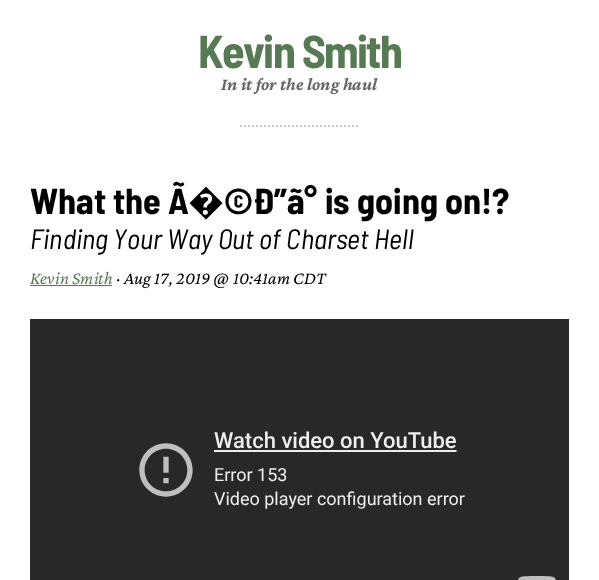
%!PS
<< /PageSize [599 580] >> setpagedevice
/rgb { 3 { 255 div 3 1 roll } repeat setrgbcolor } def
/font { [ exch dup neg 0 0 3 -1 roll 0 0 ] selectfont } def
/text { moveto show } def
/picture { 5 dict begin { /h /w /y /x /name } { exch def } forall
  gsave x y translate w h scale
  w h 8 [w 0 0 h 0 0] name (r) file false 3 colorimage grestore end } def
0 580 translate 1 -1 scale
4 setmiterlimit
255 255 255 rgb
0 0 599 580 rectfill
204 204 204 rgb
2 setlinewidth
[2 2] 0 setdash
240 126 moveto 120 0 rlineto stroke
86 122 81 rgb
30 285 82 1 rectfill
(img_01.rgb) 30 319 539 261 picture
/BarlowSemiCondensed-Bold 46 font
198 68 moveto -1.6 0 (Kevin Smith) ashow
/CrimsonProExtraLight-ExtraLightItalic 18 font
102 102 102 rgb
(In it for the long haul) 221 90 text
/BarlowSemiCondensed-Bold 36 font
0 0 0 rgb
(What the Ã) 30 214 text
/NotoSans-Bold 36 font
(�) 188 214 text
/BarlowSemiCondensed-Bold 36 font
(©Ð”ã° is going on!?) 224 214 text
/BarlowSemiCondensed-Italic 28 font
(Finding Your Way Out of Charset Hell) 30 249 text
/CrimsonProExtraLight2-ExtraLightItalic 18 font
86 122 81 rgb
(Kevin Smith) 30 284 text
0 0 0 rgb
(· Aug 17, 2019 @ 10:41am CDT) 116 284 text
showpage
